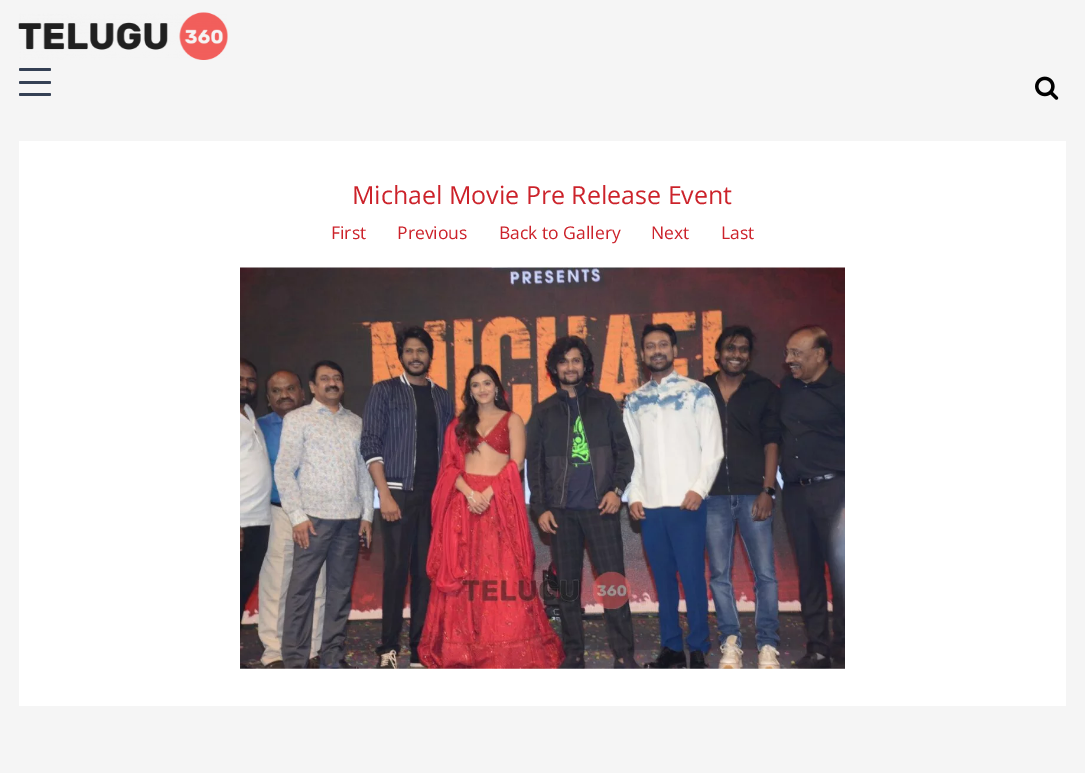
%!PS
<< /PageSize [1085 773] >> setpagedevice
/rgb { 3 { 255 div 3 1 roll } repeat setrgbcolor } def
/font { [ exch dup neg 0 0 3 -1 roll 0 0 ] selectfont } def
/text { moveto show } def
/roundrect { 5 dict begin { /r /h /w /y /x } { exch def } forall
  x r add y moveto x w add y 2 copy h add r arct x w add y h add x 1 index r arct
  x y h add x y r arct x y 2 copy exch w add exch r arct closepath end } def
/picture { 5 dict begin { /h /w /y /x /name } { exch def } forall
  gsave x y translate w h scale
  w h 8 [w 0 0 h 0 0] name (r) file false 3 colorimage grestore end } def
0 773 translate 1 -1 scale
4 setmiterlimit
245 245 245 rgb
0 0 1085 773 rectfill
(img_01.rgb) 18 12 210 48 picture
52 64 84 rgb
19 68 32 3 1.5 roundrect fill
19 81 32 3 1.5 roundrect fill
19 93 32 3 1.5 roundrect fill
(img_02.rgb) 1035 76 24 24 picture
255 255 255 rgb
19 141 1047 565 rectfill
(img_03.rgb) 240 267 605 402 picture
/OpenSans-Regular 25 font
204 34 42 rgb
(Michael Movie Pre Release Event) 352 204 text
/OpenSans-Regular 17.5 font
(First) 331 239 text
(Previous) 397 239 text
(Back to Gallery) 499 239 text
(Next) 651 239 text
(Last) 721 239 text
showpage
